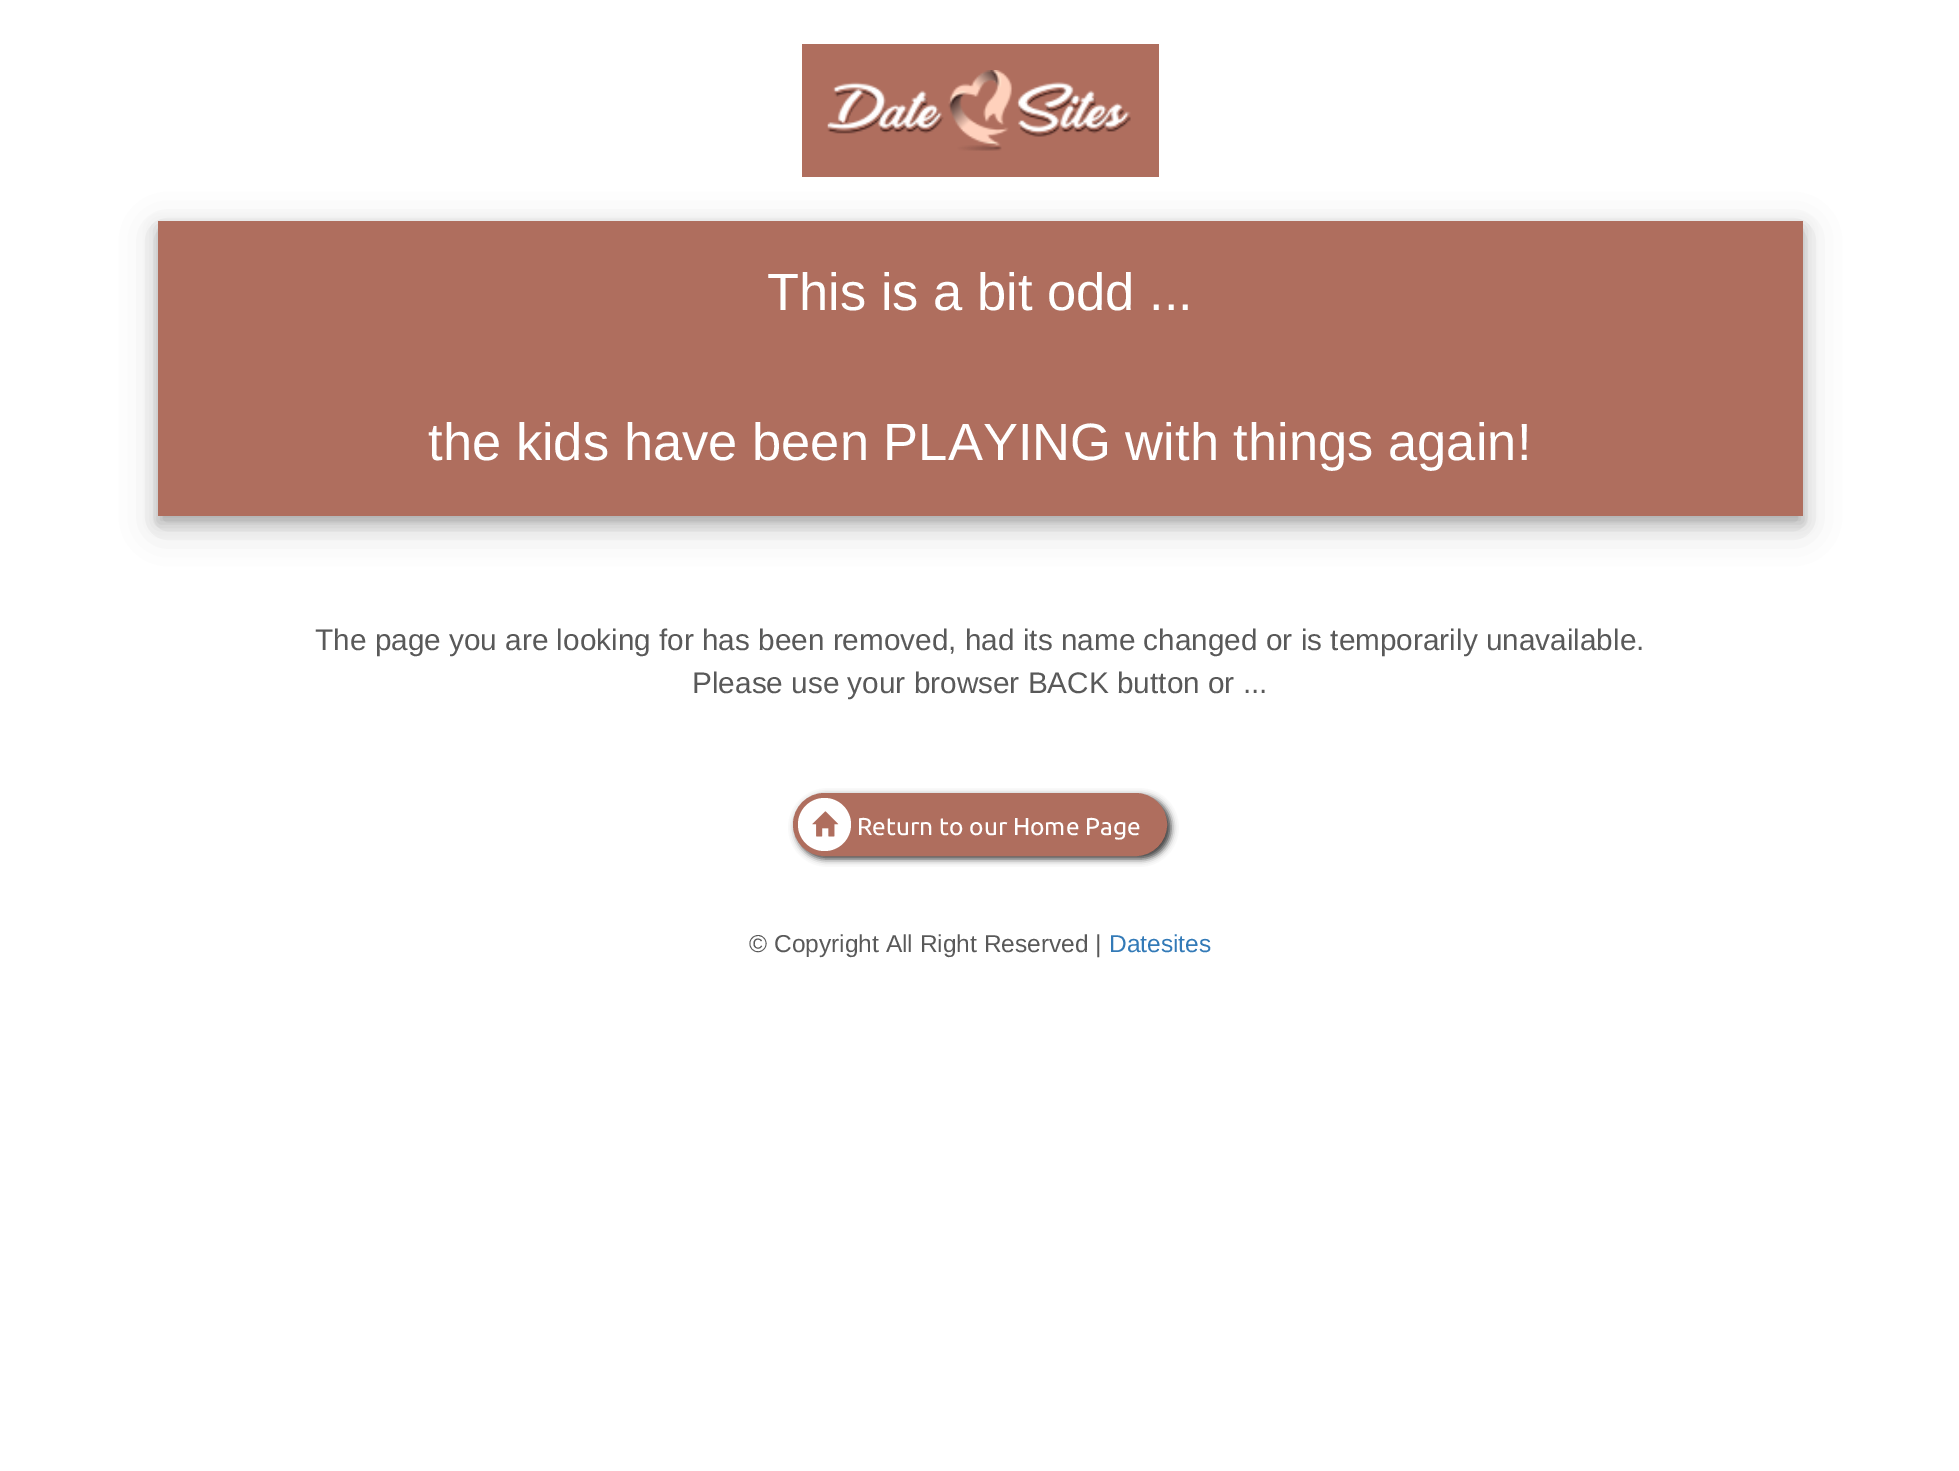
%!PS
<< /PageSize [1959 1471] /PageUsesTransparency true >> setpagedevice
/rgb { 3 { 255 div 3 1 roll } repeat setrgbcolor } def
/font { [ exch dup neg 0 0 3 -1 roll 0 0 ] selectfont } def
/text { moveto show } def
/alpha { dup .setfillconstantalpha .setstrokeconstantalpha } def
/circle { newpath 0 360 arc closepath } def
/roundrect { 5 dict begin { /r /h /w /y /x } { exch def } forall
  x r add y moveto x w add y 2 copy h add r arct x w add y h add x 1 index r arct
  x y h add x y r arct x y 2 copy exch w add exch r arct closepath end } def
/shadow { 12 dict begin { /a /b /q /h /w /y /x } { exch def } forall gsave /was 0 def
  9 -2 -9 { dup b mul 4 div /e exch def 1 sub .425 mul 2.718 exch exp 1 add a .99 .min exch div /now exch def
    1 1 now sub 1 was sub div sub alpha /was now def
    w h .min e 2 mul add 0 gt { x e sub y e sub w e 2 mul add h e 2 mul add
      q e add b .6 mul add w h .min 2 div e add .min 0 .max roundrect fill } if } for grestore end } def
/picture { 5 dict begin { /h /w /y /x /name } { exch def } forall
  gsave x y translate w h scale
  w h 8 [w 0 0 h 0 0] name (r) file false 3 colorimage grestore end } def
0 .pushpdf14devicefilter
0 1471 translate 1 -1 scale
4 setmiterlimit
255 255 255 rgb
0 0 1959 1471 rectfill
175 110 94 rgb
802 44 357 133 rectfill
(img_01.rgb) 827 70 304 81 picture
0 0 0 rgb
158 231 1645 296 0 17.5 0.19 shadow
158 228 1645 295 0 7 0.2 shadow
175 110 94 rgb
158 221 1645 295 rectfill
58 58 58 rgb
796 796 375 63 31.5 3.5 1 shadow
175 110 94 rgb
794 794 372 61 30.5 roundrect gsave fill grestore
2 setlinewidth
stroke
255 255 255 rgb
824.5 824.5 26.5 circle fill
(img_02.rgb) 812 811 27 26 picture
/LiberationSans-Regular 52.5 font
(This is a bit odd ...) 767 310 text
(the kids have been PLAYING with things again!) 428 460 text
/LiberationSans-Regular 29.75 font
89 89 89 rgb
(The page you are looking for has been removed, had its name changed or is temporarily unavailable.) 315 650 text
(Please use your browser BACK button or ...) 692 693 text
/Ubuntu-Regular 24.5 font
255 255 255 rgb
(Return to our Home Page) 857 835 text
/LiberationSans-Regular 24.5 font
89 89 89 rgb
(© Copyright All Right Reserved |) 749 952 text
51 122 183 rgb
(Datesites) 1109 952 text
.poppdf14devicefilter showpage
